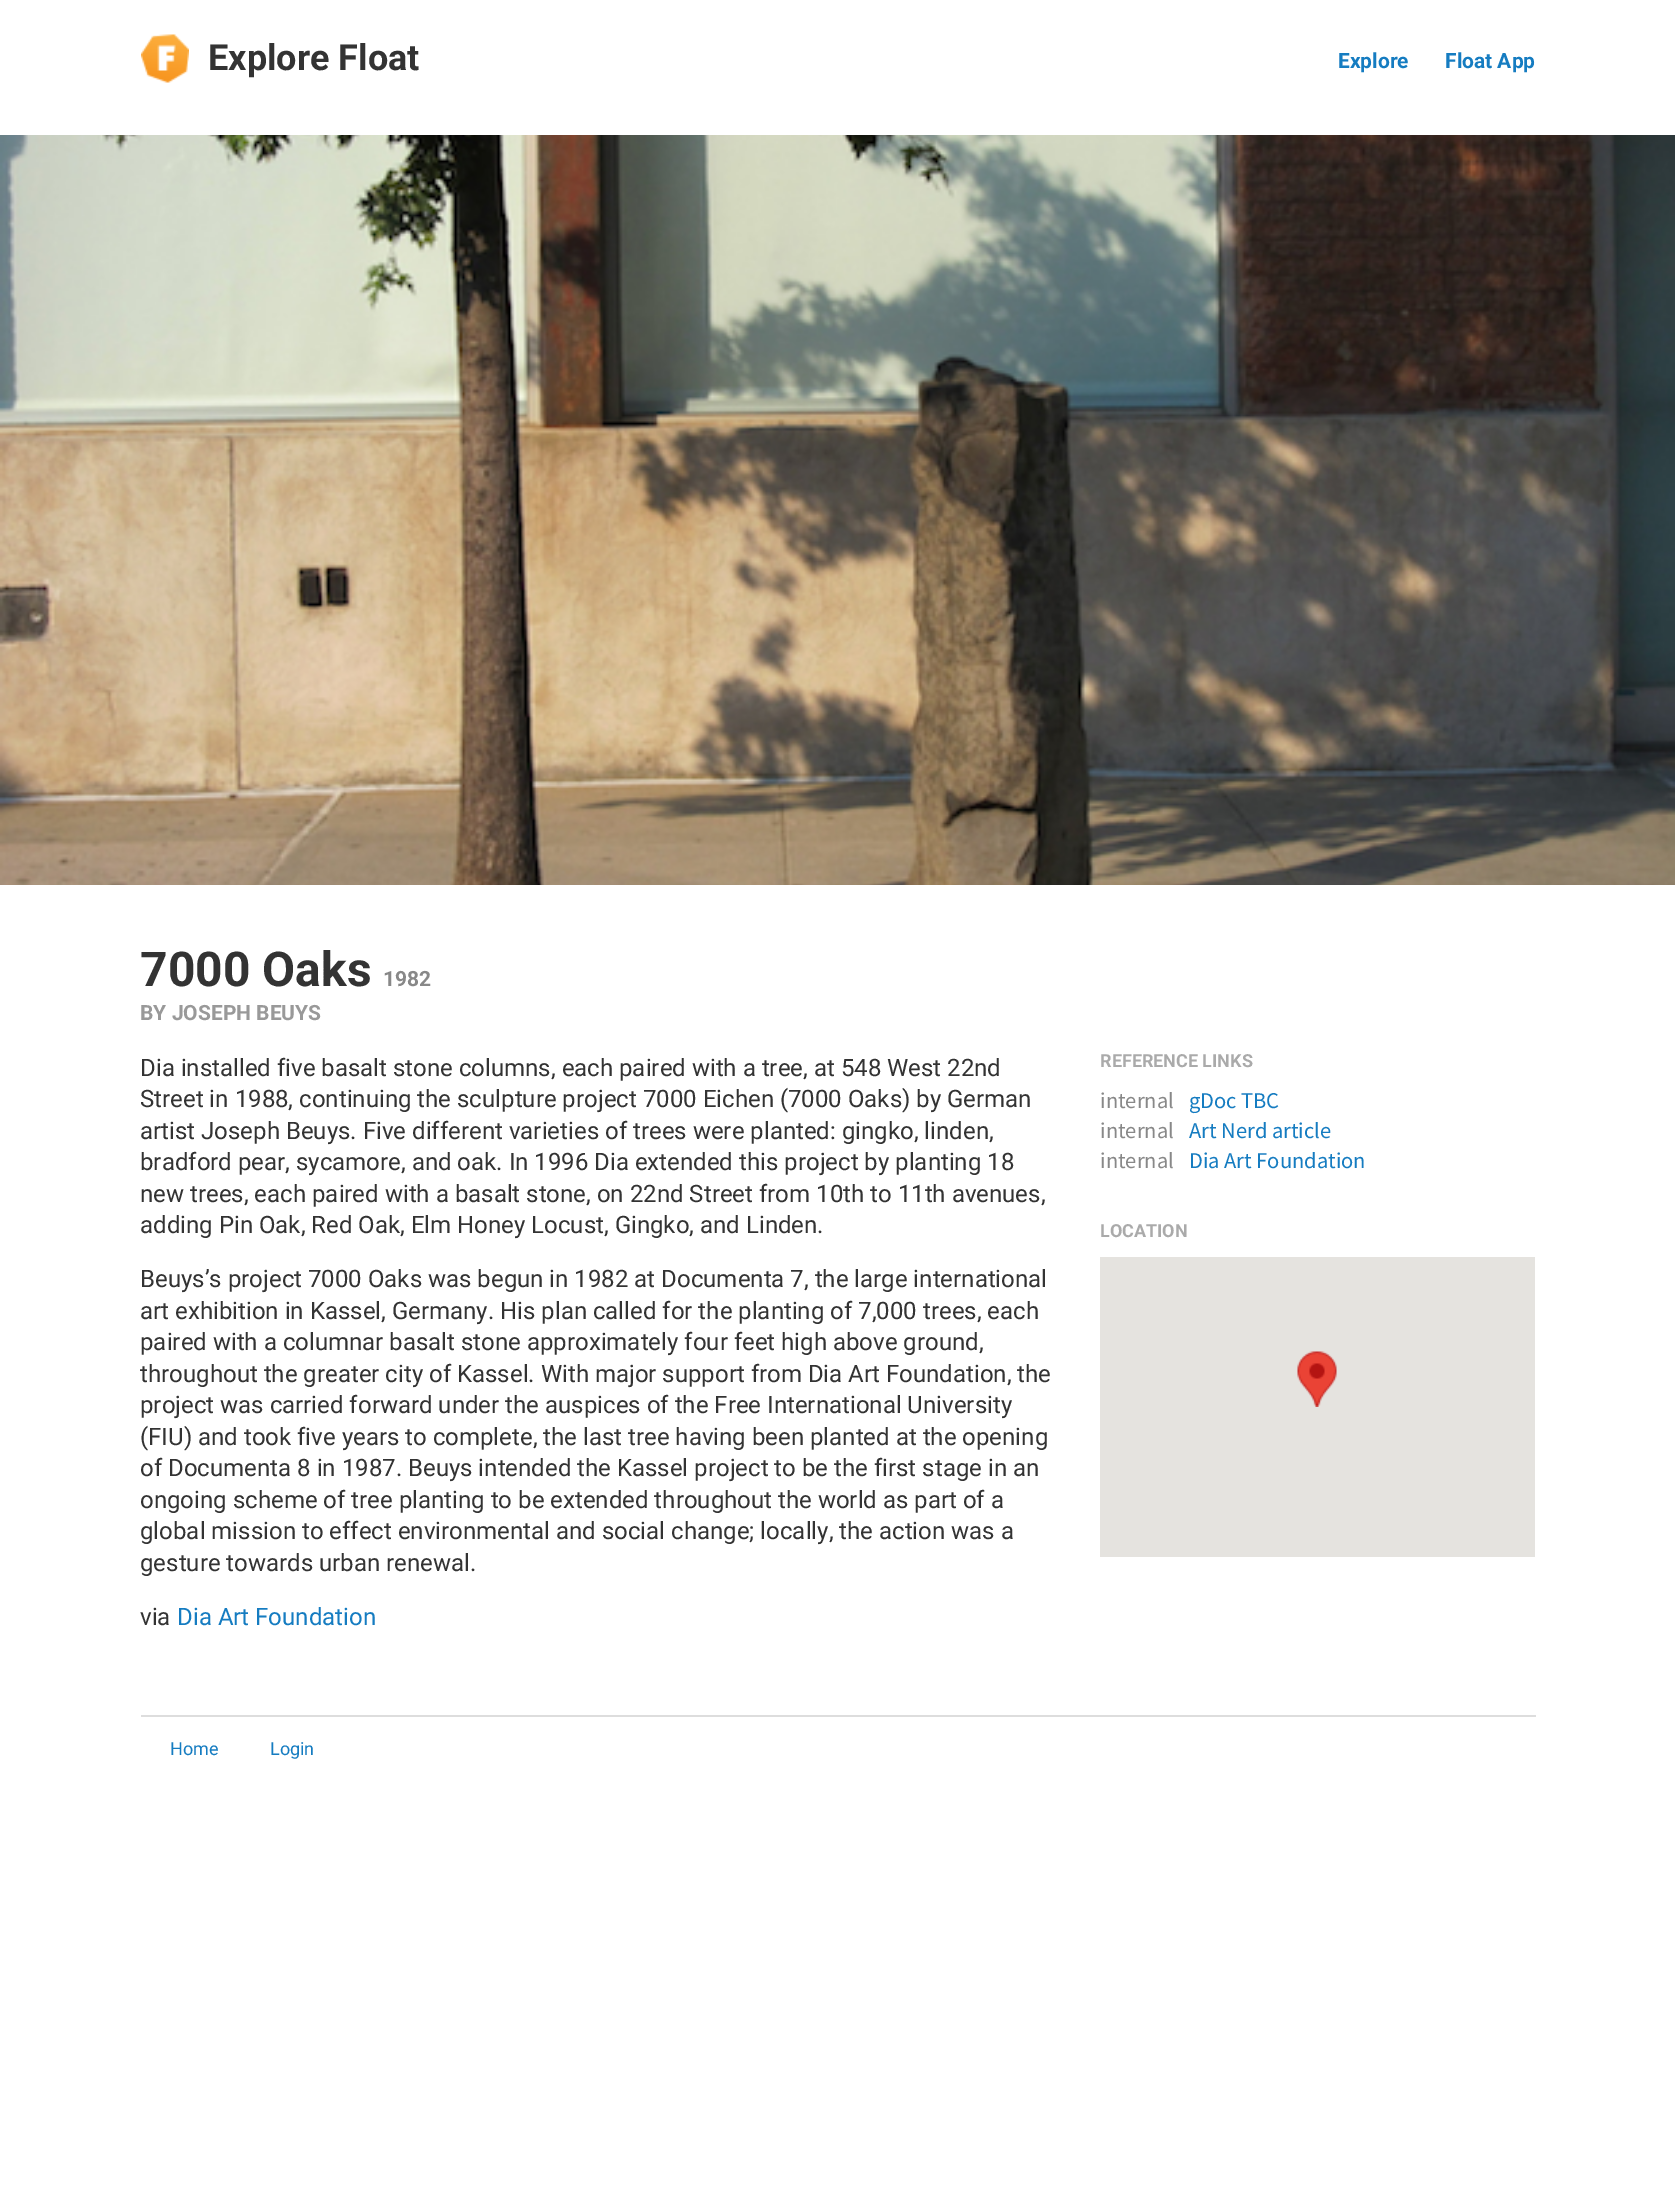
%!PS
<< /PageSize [1675 2210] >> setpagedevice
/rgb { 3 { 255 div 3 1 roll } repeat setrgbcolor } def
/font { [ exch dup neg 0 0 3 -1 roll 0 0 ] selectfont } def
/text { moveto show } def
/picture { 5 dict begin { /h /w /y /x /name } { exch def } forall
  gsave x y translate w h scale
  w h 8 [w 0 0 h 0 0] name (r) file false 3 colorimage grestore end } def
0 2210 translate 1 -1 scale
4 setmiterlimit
255 255 255 rgb
0 0 1675 2210 rectfill
(img_01.rgb) 141 34 48 49 picture
(img_02.rgb) 0 135 1675 750 picture
229 227 223 rgb
1100 1257 435 300 rectfill
(img_03.rgb) 1297 1351 40 56 picture
221 221 221 rgb
141 1715 1395 2 rectfill
/Roboto-Bold 36 font
51 51 51 rgb
(Explore Float) 208 70 text
/Roboto-Bold 21 font
21 124 193 rgb
(Explore) 1338 68 text
(Float App) 1445 68 text
/Roboto-Bold 48 font
51 51 51 rgb
(7000 Oaks) 140 986 text
/Roboto-Bold 21 font
136 136 136 rgb
(1982) 383 986 text
153 153 153 rgb
(BY JOSEPH BEUYS) 140 1020 text
/Roboto-Regular 24 font
51 51 51 rgb
(Dia installed five basalt stone columns, each paired with a tree, at 548 West 22nd) 140 1076 text
(Street in 1988, continuing the sculpture project 7000 Eichen \(7000 Oaks\) by German) 140 1107 text
(artist Joseph Beuys. Five different varieties of trees were planted: gingko, linden,) 140 1139 text
(bradford pear, sycamore, and oak. In 1996 Dia extended this project by planting 18) 140 1170 text
(new trees, each paired with a basalt stone, on 22nd Street from 10th to 11th avenues,) 140 1202 text
(adding Pin Oak, Red Oak, Elm Honey Locust, Gingko, and Linden.) 140 1233 text
(Beuys’s project 7000 Oaks was begun in 1982 at Documenta 7, the large international) 140 1287 text
(art exhibition in Kassel, Germany. His plan called for the planting of 7,000 trees, each) 140 1319 text
(paired with a columnar basalt stone approximately four feet high above ground,) 140 1350 text
(throughout the greater city of Kassel. With major support from Dia Art Foundation, the) 140 1382 text
(project was carried forward under the auspices of the Free International University) 140 1413 text
(\(FIU\) and took five years to complete, the last tree having been planted at the opening) 140 1445 text
(of Documenta 8 in 1987. Beuys intended the Kassel project to be the first stage in an) 140 1476 text
(ongoing scheme of tree planting to be extended throughout the world as part of a) 140 1508 text
(global mission to effect environmental and social change; locally, the action was a) 140 1539 text
(gesture towards urban renewal.) 140 1571 text
(via) 140 1625 text
21 124 193 rgb
(Dia Art Foundation) 177 1625 text
/Roboto-Bold 18 font
170 170 170 rgb
(REFERENCE LINKS) 1100 1067 text
/SourceSansPro-Regular 22.5 font
136 136 136 rgb
(internal) 1100 1108 text
21 124 193 rgb
(gDoc TBC) 1189 1108 text
136 136 136 rgb
(internal) 1100 1138 text
21 124 193 rgb
(Art Nerd article) 1189 1138 text
136 136 136 rgb
(internal) 1100 1168 text
21 124 193 rgb
(Dia Art Foundation) 1189 1168 text
/Roboto-Bold 18 font
170 170 170 rgb
(LOCATION) 1100 1237 text
/Roboto-Regular 18 font
21 124 193 rgb
(Home) 170 1755 text
(Login) 270 1755 text
showpage
